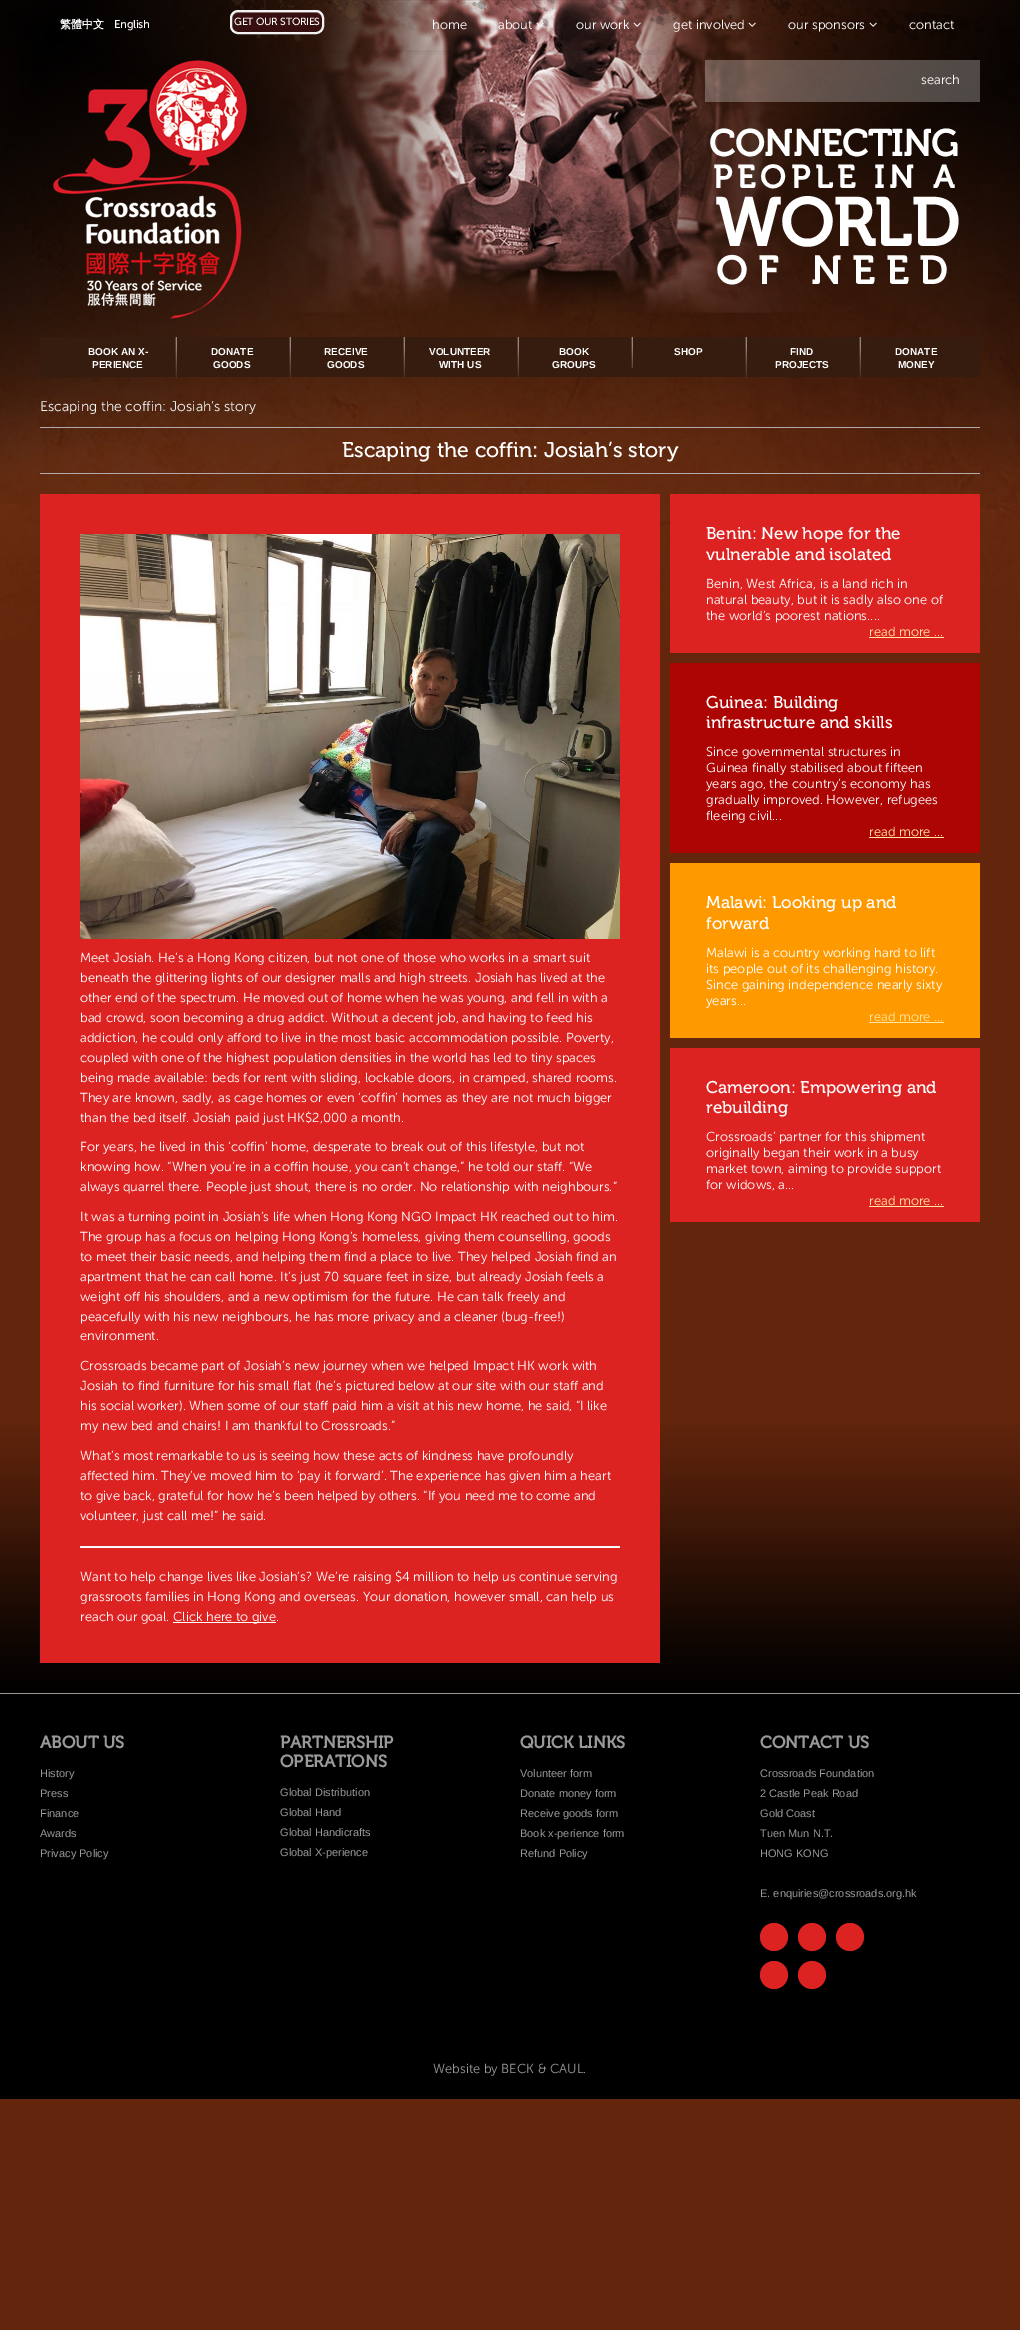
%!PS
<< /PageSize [1020 2330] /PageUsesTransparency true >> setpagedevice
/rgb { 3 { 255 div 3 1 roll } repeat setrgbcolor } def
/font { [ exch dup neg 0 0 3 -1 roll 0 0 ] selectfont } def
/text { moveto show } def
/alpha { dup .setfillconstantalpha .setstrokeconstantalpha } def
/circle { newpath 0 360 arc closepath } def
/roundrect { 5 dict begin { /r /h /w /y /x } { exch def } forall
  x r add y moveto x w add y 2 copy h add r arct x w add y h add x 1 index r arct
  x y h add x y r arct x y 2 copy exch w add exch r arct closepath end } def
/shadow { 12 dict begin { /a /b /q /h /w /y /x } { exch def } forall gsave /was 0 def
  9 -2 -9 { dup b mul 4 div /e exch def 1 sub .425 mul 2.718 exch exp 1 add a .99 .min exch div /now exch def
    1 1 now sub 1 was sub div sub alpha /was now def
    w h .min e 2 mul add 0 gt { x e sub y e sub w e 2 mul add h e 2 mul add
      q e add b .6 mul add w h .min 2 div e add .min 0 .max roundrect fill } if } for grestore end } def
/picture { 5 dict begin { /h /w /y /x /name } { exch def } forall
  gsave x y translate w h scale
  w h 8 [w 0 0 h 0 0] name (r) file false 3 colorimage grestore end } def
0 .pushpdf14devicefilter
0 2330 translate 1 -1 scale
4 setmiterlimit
99 37 12 rgb
0 0 1020 2330 rectfill
(img_01.rgb) 0 0 1020 639 picture
(img_06.rgb) 53 60 194 259 picture
0.27 alpha
255 255 255 rgb
705 60 275 42 rectfill
gsave
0 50 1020 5 rectclip
1 alpha
0 0 0 rgb
0 1 1020 50 0 5 0.1 shadow
grestore
1 alpha
56 15 15 rgb
230 10 94 24 8 roundrect fill
96 63 63 rgb
238 13 moveto 78 0 rlineto 3 0 6 3 6 6 rcurveto 0 -10 -12 -7 -19 -7 rcurveto -52 0 rlineto -7 0 -19 -3 -19 7 rcurveto 0 -3 3 -6 6 -6 rcurveto closepath fill
242 242 242 rgb
2 setlinewidth
231 11 92 22 7 roundrect stroke
(img_02.rgb) 536 22 8 5 picture
(img_03.rgb) 633 22 8 5 picture
(img_04.rgb) 748 22 8 5 picture
(img_05.rgb) 869 22 8 5 picture
54 27 15 rgb
40 337 940 40 rectfill
(img_07.rgb) 175 337 2 41 picture
(img_08.rgb) 289 337 2 41 picture
(img_09.rgb) 403 337 2 41 picture
(img_10.rgb) 517 337 2 41 picture
(img_11.rgb) 631 337 2 31 picture
(img_12.rgb) 745 337 2 41 picture
(img_13.rgb) 859 337 2 41 picture
(img_14.rgb) 0 1425 1020 268 picture
177 171 171 rgb
40 427 940 1 rectfill
40 473 940 1 rectfill
221 34 34 rgb
670 494 310 159 rectfill
255 229 157 rgb
869 637 75 1 rectfill
173 4 4 rgb
670 663 310 190 rectfill
255 229 157 rgb
869 837 75 1 rectfill
255 153 0 rgb
670 863 310 175 rectfill
255 229 157 rgb
869 1022 75 1 rectfill
221 34 34 rgb
670 1048 310 174 rectfill
255 229 157 rgb
869 1206 75 1 rectfill
221 34 34 rgb
40 494 620 1169 rectfill
(img_15.rgb) 80 534 540 405 picture
242 247 250 rgb
80 1546 540 1 rectfill
255 255 255 rgb
80 1547 540 1 rectfill
173 1622 103 1 rectfill
0 0 0 rgb
0 1694 1020 405 rectfill
153 153 152 rgb
0 1693 1020 1 rectfill
221 34 34 rgb
774 1937 14 circle fill
812 1937 14 circle fill
850 1937 14 circle fill
774 1975 14 circle fill
812 1975 14 circle fill
/WenQuanYiZenHei-Bold 11 font
255 255 255 rgb
(繁體中文) 60 28 text
/MuseoSans-Bold 11 font
(English) 114 28 text
/MuseoSans-Bold 10 font
(GET OUR STORIES) 234 25 text
/MuseoSans-Light 13 font
(home) 432 29 text
(about) 498 29 text
(our work) 576 29 text
(get involved) 673 29 text
(our sponsors) 788 29 text
(contact) 909 29 text
(search) 921 84 text
/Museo-Bold 37 font
(CONNECTING) 709 156 text
/Museo-Bold 32 font
713 188 moveto 5.1 0 (PEOPLE IN A) ashow
/Museo-Bold 67 font
(WORLD) 715 246 text
/Museo-Bold 39 font
716 284 moveto 11.25 0 (OF NEED) ashow
/LiberationSans-Bold 10 font
(BOOK AN X-) 88 355 text
(PERIENCE) 92 368 text
(DONATE) 211 355 text
(GOODS) 213 368 text
(RECEIVE) 324 355 text
(GOODS) 327 368 text
(VOLUNTEER) 429 355 text
(WITH US) 439 368 text
(BOOK) 559 355 text
(GROUPS) 552 368 text
(SHOP) 674 355 text
(FIND) 790 355 text
(PROJECTS) 775 368 text
(DONATE) 895 355 text
(MONEY) 898 368 text
/MuseoSans-Light 14 font
242 247 250 rgb
(Escaping the coffin: Josiah’s story) 40 411 text
/Museo-Regular 21.2 font
255 255 255 rgb
(Escaping the coffin: Josiah’s story) 342 457 text
/Museo-Regular 17 font
(Benin: New hope for the) 706 539 text
(vulnerable and isolated) 706 560 text
/MuseoSans-Light 13 font
(Benin, West Africa, is a land rich in) 706 588 text
(natural beauty, but it is sadly also one of) 706 604 text
(the world’s poorest nations....) 706 620 text
255 229 157 rgb
(read more ...) 869 636 text
/Museo-Regular 17 font
255 255 255 rgb
(Guinea: Building) 706 708 text
(infrastructure and skills) 706 728 text
/MuseoSans-Light 13 font
(Since governmental structures in) 706 756 text
(Guinea finally stabilised about fifteen) 706 772 text
(years ago, the country’s economy has) 706 788 text
(gradually improved. However, refugees) 706 804 text
(fleeing civil...) 706 820 text
255 229 157 rgb
(read more ...) 869 836 text
/Museo-Regular 17 font
255 255 255 rgb
(Malawi: Looking up and) 706 908 text
(forward) 706 929 text
/MuseoSans-Light 13 font
(Malawi is a country working hard to lift) 706 957 text
(its people out of its challenging history.) 706 973 text
(Since gaining independence nearly sixty) 706 989 text
(years...) 706 1005 text
255 229 157 rgb
(read more ...) 869 1021 text
/Museo-Regular 17 font
255 255 255 rgb
(Cameroon: Empowering and) 706 1093 text
(rebuilding) 706 1113 text
/MuseoSans-Light 13 font
(Crossroads’ partner for this shipment) 706 1141 text
(originally began their work in a busy) 706 1157 text
(market town, aiming to provide support) 706 1173 text
(for widows, a...) 706 1189 text
255 229 157 rgb
(read more ...) 869 1205 text
255 255 255 rgb
(Meet Josiah. He’s a Hong Kong citizen, but not one of those who works in a smart suit) 80 962 text
(beneath the glittering lights of our designer malls and high streets. Josiah has lived at the) 80 982 text
(other end of the spectrum. He moved out of home when he was young, and fell in with a) 80 1002 text
(bad crowd, soon becoming a drug addict. Without a decent job, and having to feed his) 80 1022 text
(addiction, he could only afford to live in the most basic accommodation possible. Poverty,) 80 1042 text
(coupled with one of the highest population densities in the world has led to tiny spaces) 80 1062 text
(being made available: beds for rent with sliding, lockable doors, in cramped, shared rooms.) 80 1082 text
(They are known, sadly, as cage homes or even ‘coffin’ homes as they are not much bigger) 80 1102 text
(than the bed itself. Josiah paid just HK$2,000 a month.) 80 1122 text
(For years, he lived in this ‘coffin’ home, desperate to break out of this lifestyle, but not) 80 1151 text
(knowing how. “When you’re in a coffin house, you can’t change,” he told our staff. “We) 80 1171 text
(always quarrel there. People just shout, there is no order. No relationship with neighbours.”) 80 1191 text
(It was a turning point in Josiah’s life when Hong Kong NGO Impact HK reached out to him.) 80 1221 text
(The group has a focus on helping Hong Kong’s homeless, giving them counselling, goods) 80 1241 text
(to meet their basic needs, and helping them find a place to live. They helped Josiah find an) 80 1261 text
(apartment that he can call home. It’s just 70 square feet in size, but already Josiah feels a) 80 1281 text
(weight off his shoulders, and a new optimism for the future. He can talk freely and) 80 1301 text
(peacefully with his new neighbours, he has more privacy and a cleaner \(bug-free!\)) 80 1321 text
(environment.) 80 1340 text
(Crossroads became part of Josiah’s new journey when we helped Impact HK work with) 80 1370 text
(Josiah to find furniture for his small flat \(he’s pictured below at our site with our staff and) 80 1390 text
(his social worker\). When some of our staff paid him a visit at his new home, he said, “I like) 80 1410 text
(my new bed and chairs! I am thankful to Crossroads.”) 80 1430 text
(What’s most remarkable to us is seeing how these acts of kindness have profoundly) 80 1460 text
(affected him. They’ve moved him to ‘pay it forward’. The experience has given him a heart) 80 1480 text
(to give back, grateful for how he’s been helped by others. “If you need me to come and) 80 1500 text
(volunteer, just call me!” he said.) 80 1520 text
(Want to help change lives like Josiah’s? We’re raising $4 million to help us continue serving) 80 1581 text
(grassroots families in Hong Kong and overseas. Your donation, however small, can help us) 80 1601 text
(reach our goal.) 80 1621 text
(Click here to give.) 173 1621 text
/Museo-Bold 17 font
153 153 153 rgb
(ABOUT US) 40 1748 text
/LiberationSans-Regular 11 font
(History) 40 1777 text
(Press) 40 1797 text
(Finance) 40 1817 text
(Awards) 40 1837 text
(Privacy Policy) 40 1857 text
/Museo-Bold 17 font
(PARTNERSHIP) 280 1748 text
(OPERATIONS) 280 1767 text
/LiberationSans-Regular 11 font
(Global Distribution) 280 1796 text
(Global Hand) 280 1816 text
(Global Handicrafts) 280 1836 text
(Global X-perience) 280 1856 text
/Museo-Bold 17 font
(QUICK LINKS) 520 1748 text
/LiberationSans-Regular 11 font
(Volunteer form) 520 1777 text
(Donate money form) 520 1797 text
(Receive goods form) 520 1817 text
(Book x-perience form) 520 1837 text
(Refund Policy) 520 1857 text
/Museo-Bold 17 font
(CONTACT US) 760 1748 text
/LiberationSans-Regular 11 font
(Crossroads Foundation) 760 1777 text
(2 Castle Peak Road) 760 1797 text
(Gold Coast) 760 1817 text
(Tuen Mun N.T.) 760 1837 text
(HONG KONG) 760 1857 text
(E. enquiries@crossroads.org.hk) 760 1897 text
/MuseoSans-Light 13 font
(Website by BECK & CAUL.) 433 2073 text
.poppdf14devicefilter showpage
